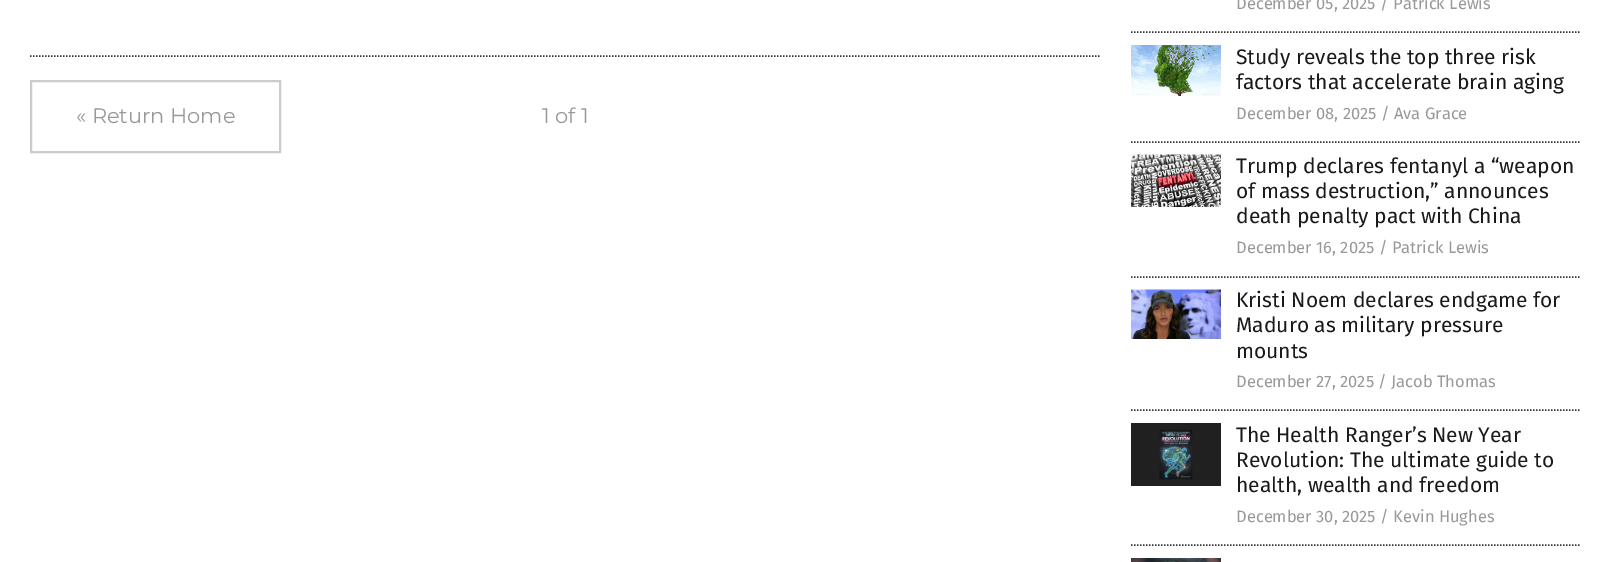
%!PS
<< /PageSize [1611 562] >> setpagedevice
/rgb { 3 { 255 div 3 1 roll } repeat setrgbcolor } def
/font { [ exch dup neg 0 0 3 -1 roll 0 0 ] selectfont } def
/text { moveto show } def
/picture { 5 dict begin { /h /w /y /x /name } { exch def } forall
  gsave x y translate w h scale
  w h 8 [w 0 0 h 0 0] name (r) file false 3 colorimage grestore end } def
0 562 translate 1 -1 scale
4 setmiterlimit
255 255 255 rgb
0 0 1611 562 rectfill
52 52 52 rgb
1.5 setlinewidth
[1.5 1.5] 0 setdash
30 56 moveto 1071 0 rlineto stroke
204 204 204 rgb
2 setlinewidth
[] 0 setdash
31 81 249 71 rectstroke
52 52 52 rgb
1.5 setlinewidth
[1.5 1.5] 0 setdash
1131 32 moveto 450 0 rlineto stroke
1131 142 moveto 450 0 rlineto stroke
(img_01.rgb) 1131 45 90 51 picture
1131 277 moveto 450 0 rlineto stroke
(img_02.rgb) 1131 154 90 53 picture
1131 410 moveto 450 0 rlineto stroke
(img_03.rgb) 1131 289 90 50 picture
1131 545 moveto 450 0 rlineto stroke
(img_04.rgb) 1131 423 90 63 picture
(img_05.rgb) 1131 558 90 4 picture
/Montserrat-Regular 21 font
153 153 153 rgb
(« Return Home) 76 123 text
(1 of 1) 542 123 text
/FiraSans-Regular 16.5 font
(December 05, 2025 / Patrick Lewis) 1236 9 text
/FiraSans-Regular 21 font
26 26 26 rgb
(Study reveals the top three risk) 1236 64 text
(factors that accelerate brain aging) 1236 89 text
/FiraSans-Regular 16.5 font
153 153 153 rgb
(December 08, 2025 / Ava Grace) 1236 119 text
/FiraSans-Regular 21 font
26 26 26 rgb
(Trump declares fentanyl a “weapon) 1236 173 text
(of mass destruction,” announces) 1236 198 text
(death penalty pact with China) 1236 223 text
/FiraSans-Regular 16.5 font
153 153 153 rgb
(December 16, 2025 / Patrick Lewis) 1236 253 text
/FiraSans-Regular 21 font
26 26 26 rgb
(Kristi Noem declares endgame for) 1236 307 text
(Maduro as military pressure) 1236 332 text
(mounts) 1236 358 text
/FiraSans-Regular 16.5 font
153 153 153 rgb
(December 27, 2025 / Jacob Thomas) 1236 387 text
/FiraSans-Regular 21 font
26 26 26 rgb
(The Health Ranger’s New Year) 1236 442 text
(Revolution: The ultimate guide to) 1236 467 text
(health, wealth and freedom) 1236 492 text
/FiraSans-Regular 16.5 font
153 153 153 rgb
(December 30, 2025 / Kevin Hughes) 1236 522 text
showpage
